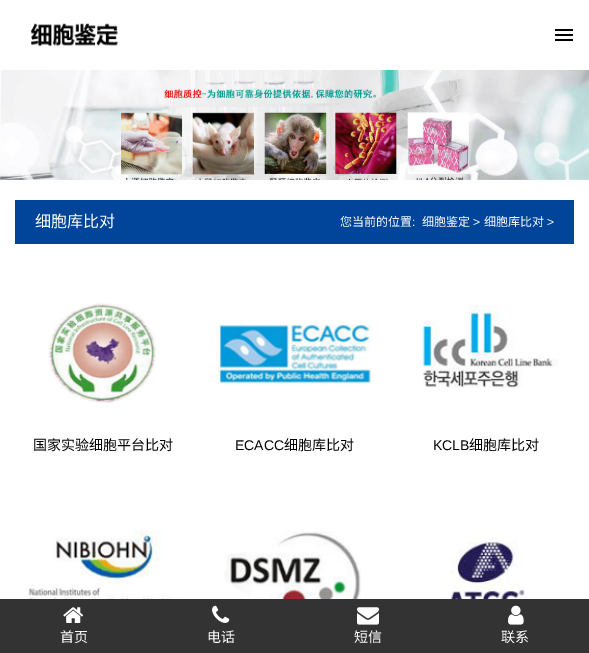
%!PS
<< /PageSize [589 653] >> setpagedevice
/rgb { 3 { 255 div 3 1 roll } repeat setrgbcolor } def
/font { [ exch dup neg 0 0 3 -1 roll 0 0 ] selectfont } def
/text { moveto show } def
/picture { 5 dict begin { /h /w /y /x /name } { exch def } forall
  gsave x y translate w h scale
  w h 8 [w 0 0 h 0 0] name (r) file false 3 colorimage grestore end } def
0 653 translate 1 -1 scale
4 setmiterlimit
255 255 255 rgb
0 0 589 653 rectfill
(img_01.rgb) 30 23 88 24 picture
0 0 0 rgb
555 34 18 2 rectfill
555 29 18 2 rectfill
555 39 18 2 rectfill
(img_02.rgb) 0 70 589 110 picture
1 69 154 rgb
15 200 559 44 rectfill
(img_03.rgb) 48 303 108 101 picture
(img_04.rgb) 218 324 154 61 picture
(img_05.rgb) 422 305 136 83 picture
(img_06.rgb) 28 530 151 69 picture
(img_07.rgb) 224 531 137 68 picture
(img_08.rgb) 443 537 83 62 picture
51 51 51 rgb
0 599 589 54 rectfill
(img_09.rgb) 63 607 21 16 picture
(img_10.rgb) 212 605 18 18 picture
(img_11.rgb) 357 607 22 18 picture
(img_12.rgb) 508 605 16 20 picture
/NotoSansCJKSC-Regular 16 font
255 255 255 rgb
(细胞库比对) 35 227 text
/NotoSansCJKSC-Regular 12 font
(您当前的位置) 340 226 text
/LiberationSans-Regular 12 font
(:) 412 226 text
/NotoSansCJKSC-Regular 12 font
(细胞鉴定) 422 226 text
/LiberationSans-Regular 12 font
(>) 473 226 text
/NotoSansCJKSC-Regular 12 font
(细胞库比对) 484 226 text
/LiberationSans-Regular 12 font
(>) 547 226 text
/NotoSansCJKSC-Regular 14 font
0 0 0 rgb
(国家实验细胞平台比对) 33 450 text
/LiberationSans-Regular 14 font
(ECACC) 235 450 text
/NotoSansCJKSC-Regular 14 font
(细胞库比对) 284 450 text
/LiberationSans-Regular 14 font
(KCLB) 433 450 text
/NotoSansCJKSC-Regular 14 font
(细胞库比对) 469 450 text
255 255 255 rgb
(首页) 60 642 text
(电话) 207 642 text
(短信) 354 642 text
(联系) 501 642 text
showpage
